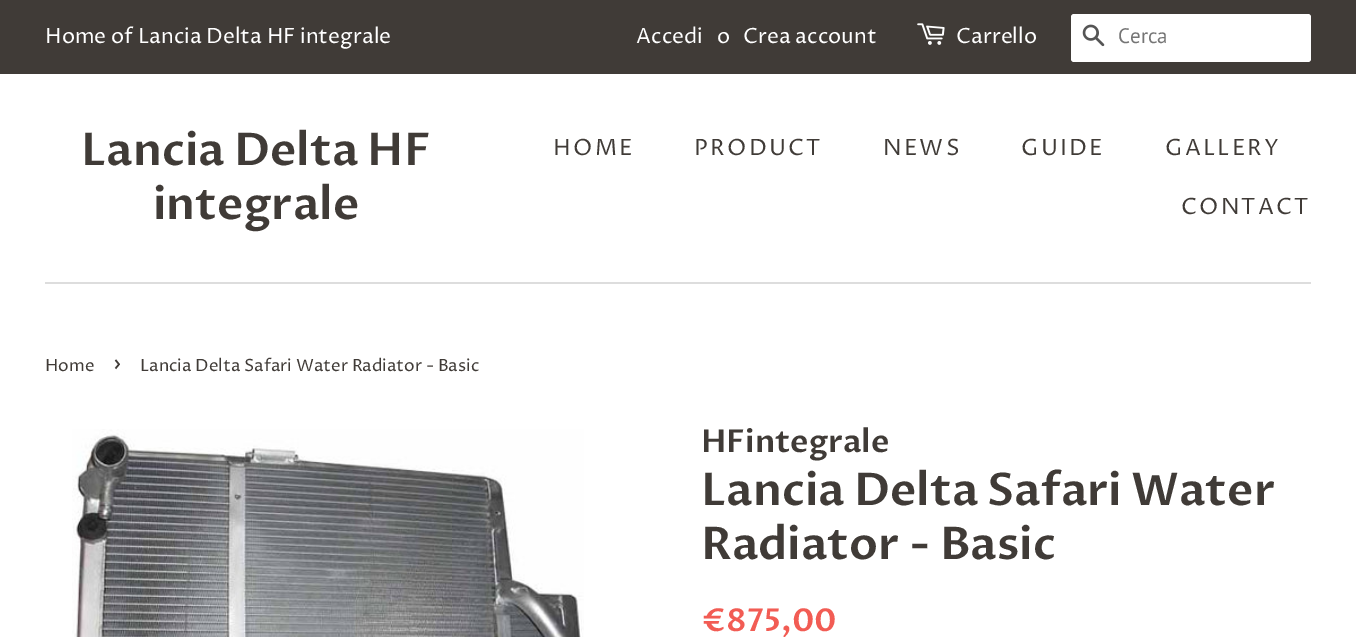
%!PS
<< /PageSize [1356 637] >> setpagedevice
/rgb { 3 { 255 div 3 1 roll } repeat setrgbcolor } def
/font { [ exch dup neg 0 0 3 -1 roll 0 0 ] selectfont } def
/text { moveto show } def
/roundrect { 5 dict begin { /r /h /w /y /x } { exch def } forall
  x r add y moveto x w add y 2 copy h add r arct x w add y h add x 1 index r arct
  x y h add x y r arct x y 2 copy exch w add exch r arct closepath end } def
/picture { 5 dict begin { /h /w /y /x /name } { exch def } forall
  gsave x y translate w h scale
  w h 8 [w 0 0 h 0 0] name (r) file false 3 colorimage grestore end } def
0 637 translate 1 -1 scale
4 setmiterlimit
255 255 255 rgb
0 0 1356 637 rectfill
64 59 55 rgb
0 0 1356 74 rectfill
(img_01.rgb) 917 23 28 22 picture
255 255 255 rgb
1071 14 240 48 3 roundrect fill
(img_02.rgb) 1082 24 23 23 picture
221 221 221 rgb
45 282 1266 2 rectfill
(img_03.rgb) 72 429 512 208 picture
/ProzaLibre-Regular 21 font
255 255 255 rgb
(Home of Lancia Delta HF integrale) 45 43 text
(Accedi) 636 43 text
(o) 717 43 text
(Crea account) 743 43 text
(Carrello) 956 43 text
/PTSans-Regular 21 font
117 117 117 rgb
(Cerca) 1118 43 text
/ProzaLibre-SemiBold 45 font
64 59 55 rgb
(Lancia Delta HF) 81 165 text
(integrale) 153 219 text
/ProzaLibre-Regular 22.5 font
553 155 moveto 2.25 0 (HOME) ashow
694 155 moveto 2.25 0 (PRODUCT) ashow
883 155 moveto 2.25 0 (NEWS) ashow
1021 155 moveto 2.25 0 (GUIDE) ashow
1165 155 moveto 2.25 0 (GALLERY) ashow
1181 214 moveto 2.25 0 (CONTACT) ashow
/ProzaLibre-Regular 16.9 font
(Home) 45 371 text
/ProzaLibre-Regular 24 font
(›) 113 371 text
/ProzaLibre-Regular 16.9 font
(Lancia Delta Safari Water Radiator - Basic) 140 371 text
/ProzaLibre-SemiBold 31.5 font
(HFintegrale) 701 452 text
/ProzaLibre-SemiBold 45 font
(Lancia Delta Safari Water) 701 505 text
(Radiator - Basic) 701 559 text
/ProzaLibre-SemiBold 31.5 font
242 92 84 rgb
(€875,00) 701 631 text
showpage
